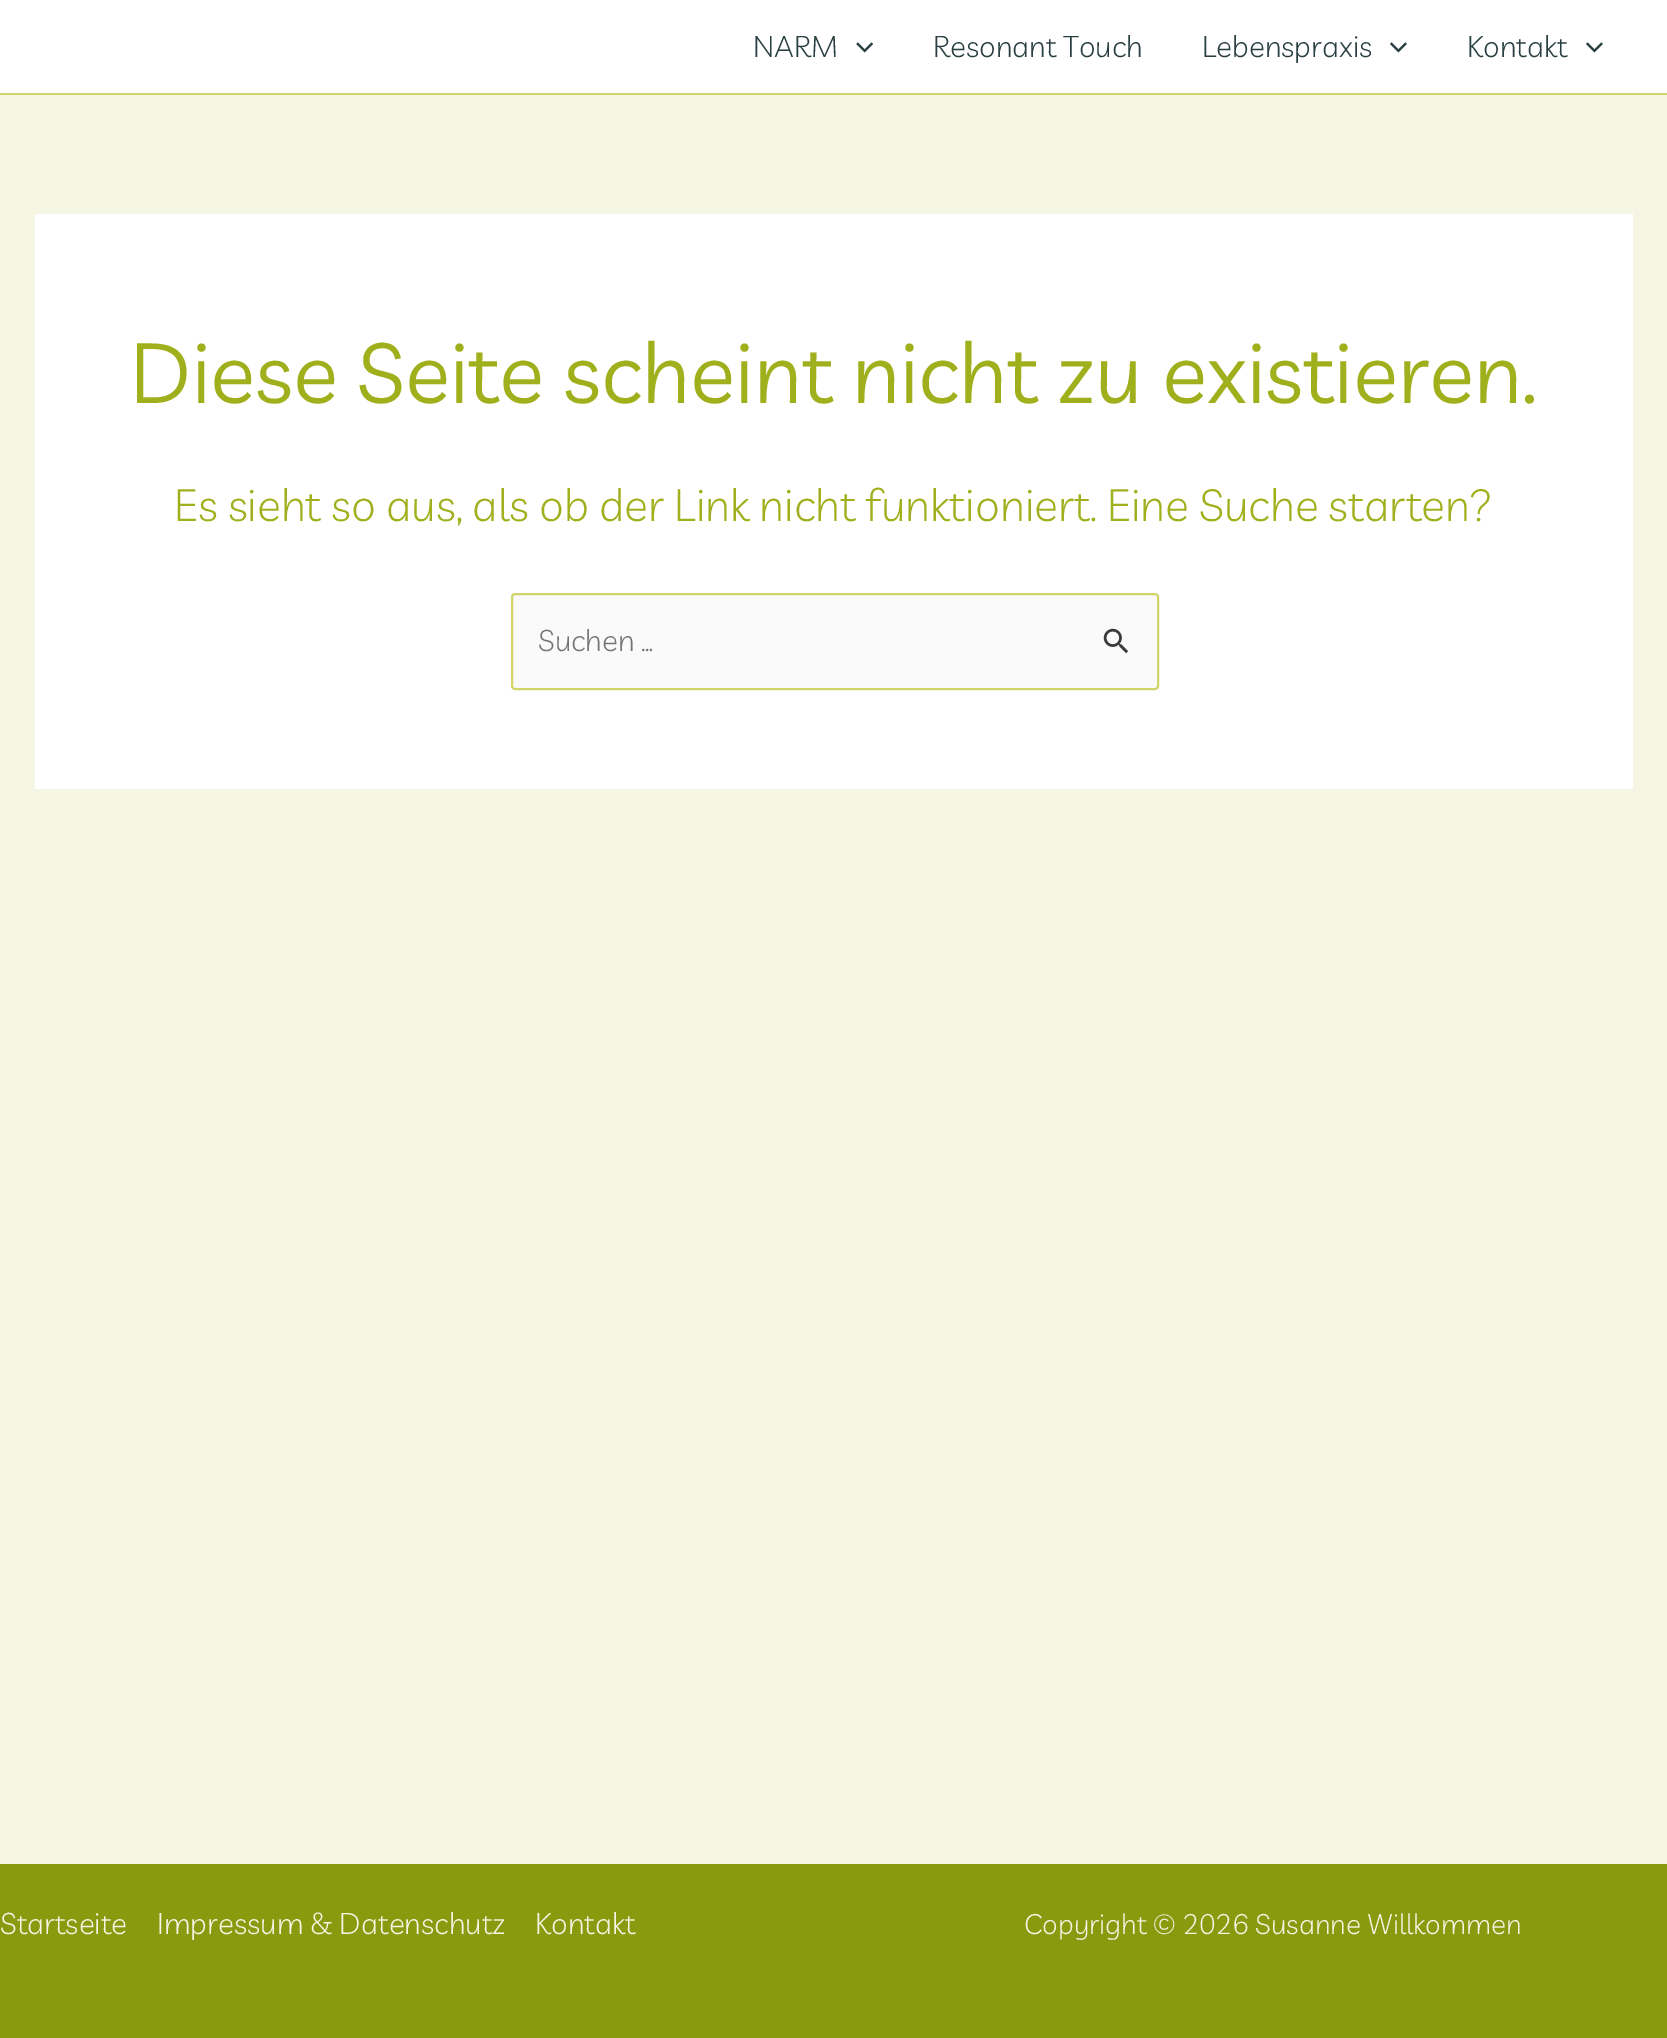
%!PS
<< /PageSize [1667 2038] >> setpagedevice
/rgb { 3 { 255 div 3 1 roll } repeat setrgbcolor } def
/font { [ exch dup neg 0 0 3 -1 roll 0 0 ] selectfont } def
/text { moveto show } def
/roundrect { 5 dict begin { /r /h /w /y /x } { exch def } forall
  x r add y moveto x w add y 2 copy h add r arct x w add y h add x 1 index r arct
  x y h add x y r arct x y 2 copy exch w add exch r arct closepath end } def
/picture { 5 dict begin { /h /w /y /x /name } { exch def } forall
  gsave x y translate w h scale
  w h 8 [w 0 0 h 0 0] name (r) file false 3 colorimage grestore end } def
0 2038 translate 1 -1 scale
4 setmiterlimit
245 245 227 rgb
0 0 1667 2038 rectfill
255 255 255 rgb
0 0 1667 93 rectfill
210 213 105 rgb
0 93 1667 2 rectfill
(img_01.rgb) 856 42 17 11 picture
(img_02.rgb) 1390 42 17 11 picture
(img_02.rgb) 1586 42 17 11 picture
255 255 255 rgb
35 214 1598 575 rectfill
250 250 250 rgb
512 594 646 95 3 roundrect gsave fill grestore
210 213 105 rgb
2 setlinewidth
stroke
(img_03.rgb) 1103 628 26 26 picture
138 154 15 rgb
0 1864 1667 174 rectfill
/Livvic-Light 29.75 font
40 62 64 rgb
(NARM) 753 57 text
(Resonant Touch) 933 57 text
(Lebenspraxis) 1202 57 text
(Kontakt) 1467 57 text
/Livvic-Regular 84 font
160 176 29 rgb
(Diese Seite scheint nicht zu existieren.) 130 403 text
/Livvic-Light 44.6 font
(Es sieht so aus, als ob der Link nicht funktioniert. Eine Suche starten?) 174 521 text
/Livvic-Light 29.75 font
117 117 117 rgb
(Suchen …) 538 651 text
245 245 227 rgb
(Startseite) 0 1934 text
(Impressum & Datenschutz) 157 1934 text
(Kontakt) 535 1934 text
/Livvic-Light 28 font
(Copyright © 2026 Susanne Willkommen) 1024 1934 text
showpage
